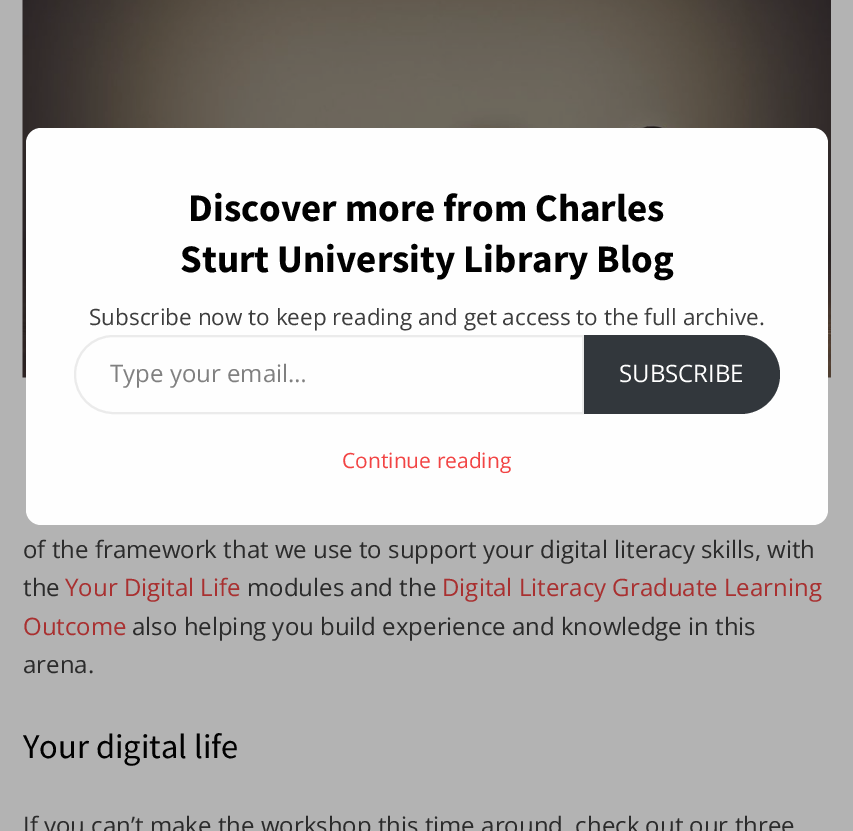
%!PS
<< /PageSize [853 831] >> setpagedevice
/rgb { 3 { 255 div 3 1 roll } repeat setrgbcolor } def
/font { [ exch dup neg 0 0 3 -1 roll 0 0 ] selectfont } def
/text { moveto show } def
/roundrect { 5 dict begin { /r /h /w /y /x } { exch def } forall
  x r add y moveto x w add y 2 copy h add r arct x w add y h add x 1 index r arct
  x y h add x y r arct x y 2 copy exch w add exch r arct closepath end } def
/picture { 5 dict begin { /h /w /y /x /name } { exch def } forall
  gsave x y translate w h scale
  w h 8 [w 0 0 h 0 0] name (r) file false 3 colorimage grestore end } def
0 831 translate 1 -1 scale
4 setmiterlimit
179 179 179 rgb
0 0 853 831 rectfill
(img_01.rgb) 22 0 809 378 picture
254 254 254 rgb
26 128 802 397 15 roundrect fill
235 235 235 rgb
2 setlinewidth
113.5 336 moveto 469.5 0 rlineto 0 77 rlineto -469.5 0 rlineto -21.5 0 -38.5 -17 -38.5 -38.5 rcurveto 0 -21.5 17 -38.5 38.5 -38.5 rcurveto closepath stroke
50 55 60 rgb
584 335 moveto 156.5 0 rlineto 22 0 39.5 17.5 39.5 39.5 rcurveto 0 22 -17.5 39.5 -39.5 39.5 rcurveto -156.5 0 rlineto closepath fill
/SourceSansPro-Bold 39 font
1 1 1 rgb
(Discover more from Charles) 188 221 text
(Sturt University Library Blog) 180 272 text
/OpenSans-Regular 22.5 font
61 61 61 rgb
(Subscribe now to keep reading and get access to the full archive.) 89 325 text
/OpenSans-Regular 24 font
128 128 128 rgb
(Type your email…) 110 382 text
255 255 255 rgb
(SUBSCRIBE) 619 382 text
/OpenSans-Regular 21 font
242 68 68 rgb
(Continue reading) 342 468 text
/OpenSans-Regular 24 font
43 43 43 rgb
(of the framework that we use to support your digital literacy skills, with) 23 558 text
(the) 23 596 text
169 48 48 rgb
(Your Digital Life) 65 596 text
43 43 43 rgb
(modules and the) 247 596 text
169 48 48 rgb
(Digital Literacy Graduate Learning) 442 596 text
(Outcome) 23 635 text
43 43 43 rgb
(also helping you build experience and knowledge in this) 132 635 text
(arena.) 23 673 text
/SourceSansPro-Regular 34.5 font
1 1 1 rgb
(Your digital life) 23 758 text
/OpenSans-Regular 24 font
43 43 43 rgb
(If you can’t make the workshop this time around, check out our three) 23 834 text
showpage
